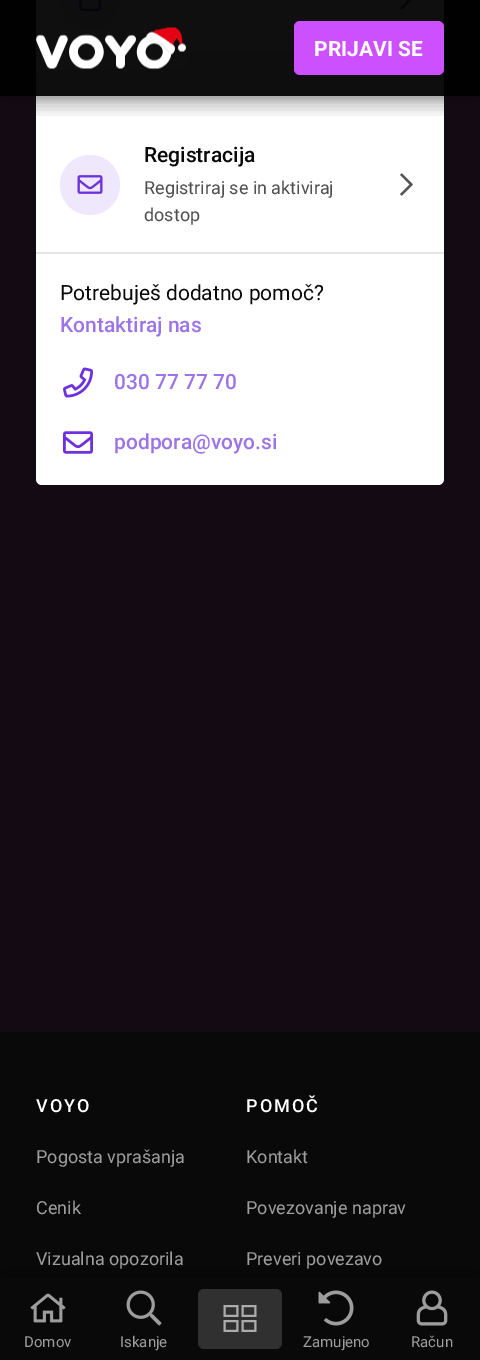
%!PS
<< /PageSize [480 1360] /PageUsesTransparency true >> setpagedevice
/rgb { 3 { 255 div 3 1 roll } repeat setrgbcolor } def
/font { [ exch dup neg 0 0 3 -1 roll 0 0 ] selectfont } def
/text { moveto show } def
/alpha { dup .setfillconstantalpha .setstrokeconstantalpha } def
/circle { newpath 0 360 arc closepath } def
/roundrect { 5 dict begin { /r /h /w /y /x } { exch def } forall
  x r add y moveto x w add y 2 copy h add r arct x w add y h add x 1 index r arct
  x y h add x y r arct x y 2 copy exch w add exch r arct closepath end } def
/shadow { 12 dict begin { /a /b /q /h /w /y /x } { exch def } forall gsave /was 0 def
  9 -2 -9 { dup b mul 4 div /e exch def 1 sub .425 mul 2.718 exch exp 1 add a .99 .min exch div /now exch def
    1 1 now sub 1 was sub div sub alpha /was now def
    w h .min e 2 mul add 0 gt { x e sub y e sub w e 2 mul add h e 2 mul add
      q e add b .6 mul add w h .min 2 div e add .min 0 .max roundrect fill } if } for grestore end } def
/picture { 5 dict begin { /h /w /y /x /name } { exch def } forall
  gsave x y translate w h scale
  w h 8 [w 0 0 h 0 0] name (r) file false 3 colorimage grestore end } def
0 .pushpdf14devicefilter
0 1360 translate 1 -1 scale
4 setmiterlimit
20 10 20 rgb
0 0 480 1360 rectfill
255 255 255 rgb
36 -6 408 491 6 roundrect fill
239 231 251 rgb
60 -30 60 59 30 roundrect fill
(img_02.rgb) 79 0 22 11 picture
(img_03.rgb) 400 0 12 10 picture
243 243 243 rgb
36 53 408 63 rectfill
gsave
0 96 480 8 rectclip
0 0 0 rgb
2 6 477 93 0 4 0.2 shadow
grestore
gsave
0 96 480 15 rectclip
0 0 0 rgb
0 2 480 96 0 13.5 0.12 shadow
grestore
gsave
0 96 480 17 rectclip
0 0 0 rgb
0 9 480 96 0 7.5 0.14 shadow
grestore
0.94 alpha
0 0 0 rgb
0 0 480 96 rectfill
1 alpha
(img_01.rgb) 36 27 150 43 picture
205 80 255 rgb
294 21 150 54 6 roundrect fill
230 230 230 rgb
36 252 408 2 rectfill
239 231 251 rgb
90 185 30 circle fill
(img_04.rgb) 77 175 26 19 picture
(img_05.rgb) 400 173 13 23 picture
(img_06.rgb) 63 367 30 31 picture
(img_07.rgb) 63 431 30 23 picture
9 9 9 rgb
0 1032 480 245 rectfill
0 0 0 rgb
0 1271 480 84 0 12 0.32 shadow
9 9 9 rgb
0 1277 480 83 rectfill
(img_08.rgb) 30 1293 36 30 picture
(img_09.rgb) 126 1290 36 36 picture
48 48 48 rgb
198 1289 84 60 6 roundrect fill
(img_10.rgb) 223 1305 34 27 picture
(img_11.rgb) 318 1290 36 36 picture
(img_12.rgb) 416 1290 32 36 picture
/Roboto-Bold 21 font
255 255 255 rgb
(PRIJAVI SE) 314 56 text
/Roboto-Medium 21 font
9 9 9 rgb
(Registracija) 144 162 text
/Roboto-Regular 18 font
79 79 79 rgb
(Registriraj se in aktiviraj) 144 194 text
(dostop) 144 221 text
/Roboto-Regular 21 font
9 9 9 rgb
(Potrebuješ dodatno pomoč?) 60 300 text
/Roboto-Medium 21 font
157 116 232 rgb
(Kontaktiraj nas) 60 332 text
(030 77 77 70) 114 389 text
(podpora@voyo.si) 114 449 text
/Roboto-Medium 18 font
255 255 255 rgb
36 1112 moveto 2 0 (VOYO) ashow
/Roboto-Regular 18 font
157 157 157 rgb
(Pogosta vprašanja) 36 1163 text
(Cenik) 36 1214 text
(Vizualna opozorila) 36 1265 text
/Roboto-Medium 18 font
255 255 255 rgb
246 1112 moveto 2 0 (POMOČ) ashow
/Roboto-Regular 18 font
157 157 157 rgb
(Kontakt) 246 1163 text
(Povezovanje naprav) 246 1214 text
(Preveri povezavo) 246 1265 text
/Roboto-Regular 15 font
(Domov) 24 1347 text
(Iskanje) 120 1347 text
(Zamujeno) 303 1347 text
(Račun) 411 1347 text
.poppdf14devicefilter showpage
